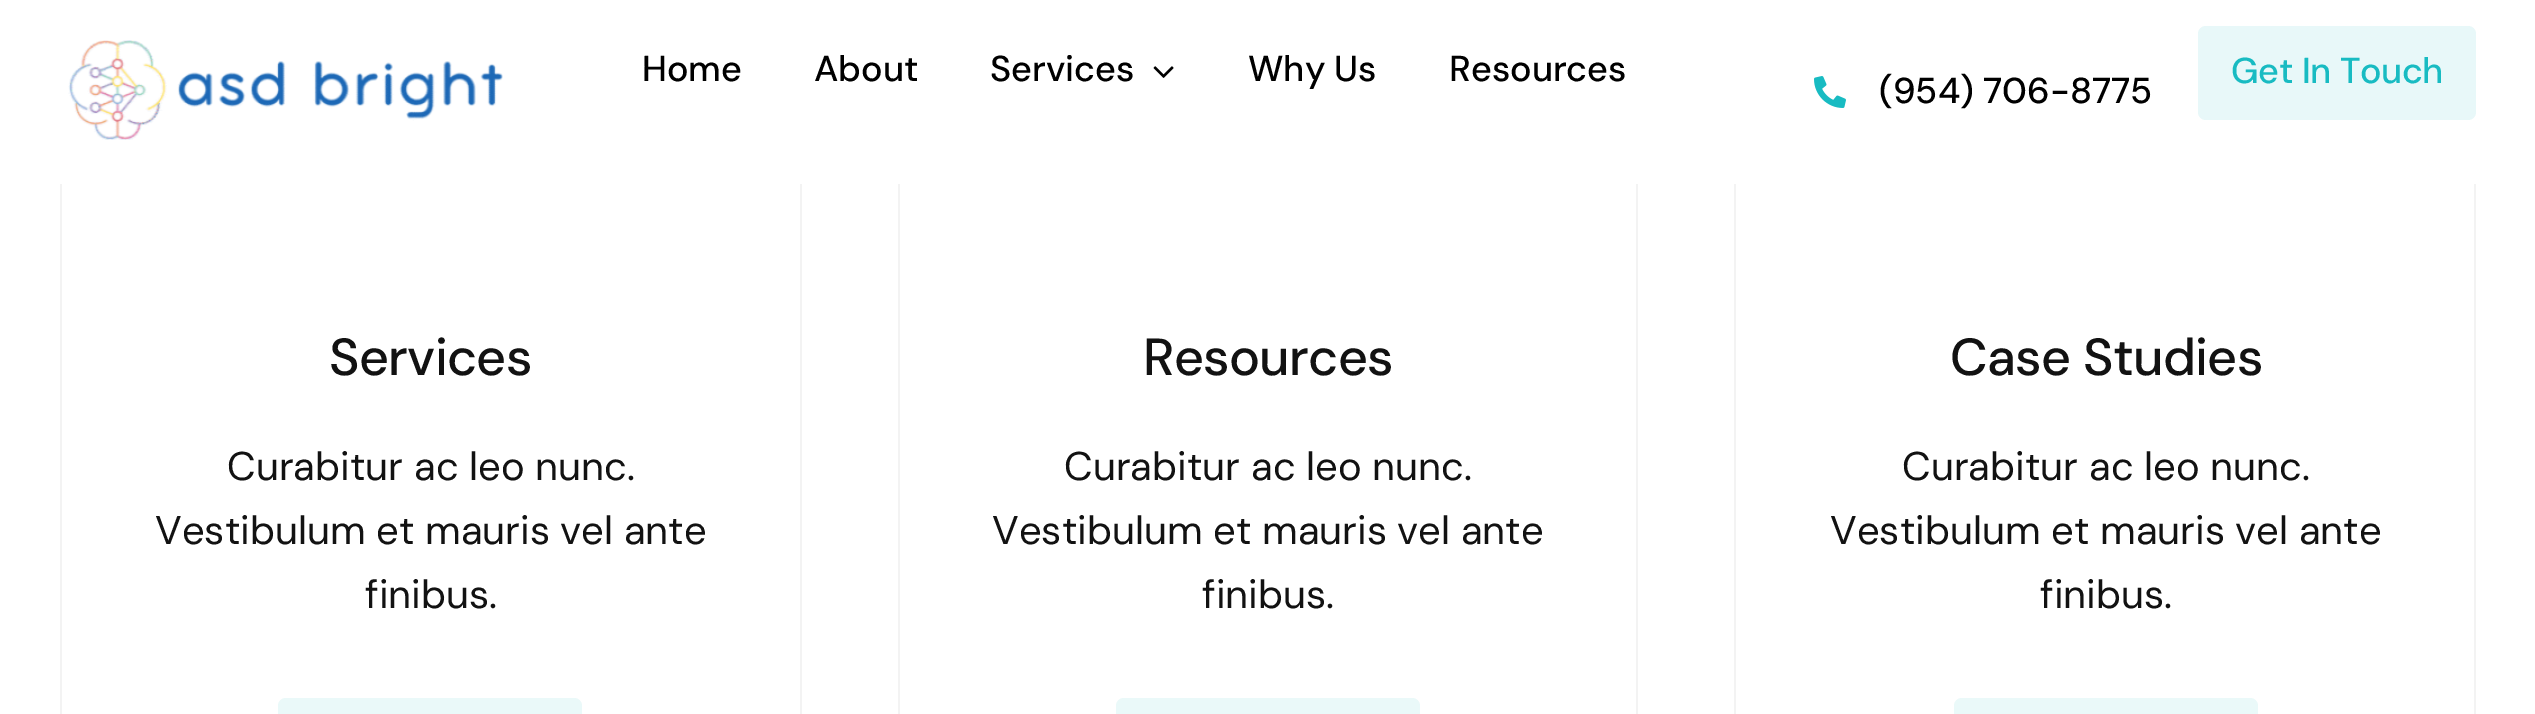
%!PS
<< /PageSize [2535 714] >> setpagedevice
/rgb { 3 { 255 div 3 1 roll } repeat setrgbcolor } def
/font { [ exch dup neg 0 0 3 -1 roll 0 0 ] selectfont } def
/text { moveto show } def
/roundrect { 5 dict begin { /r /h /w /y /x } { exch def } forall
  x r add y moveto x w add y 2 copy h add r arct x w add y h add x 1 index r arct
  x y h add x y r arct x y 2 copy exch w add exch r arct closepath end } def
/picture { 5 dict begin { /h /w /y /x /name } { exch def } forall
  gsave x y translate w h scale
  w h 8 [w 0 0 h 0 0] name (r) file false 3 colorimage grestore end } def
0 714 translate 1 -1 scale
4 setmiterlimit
255 255 255 rgb
0 0 2535 714 rectfill
243 243 243 rgb
84 -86 moveto 694 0 rlineto 13 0 24 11 24 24 rcurveto 0 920 rlineto 0 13 -11 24 -24 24 rcurveto -694 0 rlineto -13 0 -24 -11 -24 -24 rcurveto 0 -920 rlineto 0 -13 11 -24 24 -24 rcurveto closepath 84 -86 moveto 694 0 rlineto 12 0 22 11 22 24 rcurveto 0 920 rlineto 0 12 -10 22 -22 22 rcurveto -694 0 rlineto -12 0 -22 -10 -22 -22 rcurveto 0 -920 rlineto 0 -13 10 -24 22 -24 rcurveto closepath eofill
922 -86 moveto 692 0 rlineto 13 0 24 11 24 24 rcurveto 0 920 rlineto 0 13 -11 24 -24 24 rcurveto -692 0 rlineto -13 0 -24 -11 -24 -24 rcurveto 0 -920 rlineto 0 -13 11 -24 24 -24 rcurveto closepath 922 -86 moveto 692 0 rlineto 12 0 22 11 22 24 rcurveto 0 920 rlineto 0 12 -10 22 -22 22 rcurveto -692 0 rlineto -12 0 -22 -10 -22 -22 rcurveto 0 -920 rlineto 0 -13 10 -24 22 -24 rcurveto closepath eofill
1758 -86 moveto 694 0 rlineto 13 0 24 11 24 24 rcurveto 0 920 rlineto 0 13 -11 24 -24 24 rcurveto -694 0 rlineto -13 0 -24 -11 -24 -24 rcurveto 0 -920 rlineto 0 -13 11 -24 24 -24 rcurveto closepath 1758 -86 moveto 694 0 rlineto 12 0 22 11 22 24 rcurveto 0 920 rlineto 0 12 -10 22 -22 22 rcurveto -694 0 rlineto -12 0 -22 -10 -22 -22 rcurveto 0 -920 rlineto 0 -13 10 -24 22 -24 rcurveto closepath eofill
255 255 255 rgb
60 0 2416 184 rectfill
(img_01.rgb) 68 40 435 100 picture
(img_02.rgb) 1153 66 21 12 picture
(img_03.rgb) 1814 76 32 32 picture
232 248 249 rgb
2198 26 278 94 8 roundrect fill
234 249 249 rgb
278 698 304 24 8 roundrect fill
1116 698 304 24 8 roundrect fill
1954 698 304 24 8 roundrect fill
/DMSans-Medium 36 font
0 0 0 rgb
(Home) 642 81 text
(About) 814 81 text
(Services) 990 81 text
(Why Us) 1248 81 text
(Resources) 1449 81 text
(\(954\) 706-8775) 1879 103 text
24 187 194 rgb
2231 83 moveto -0.4 0 (Get In Touch) ashow
/DMSans-Medium 52 font
18 18 18 rgb
329 375 moveto -0.75 0 (Services) ashow
/DMSans-Regular 40 font
(Curabitur ac leo nunc.) 227 480 text
(Vestibulum et mauris vel ante) 155 544 text
(finibus.) 365 608 text
/DMSans-Medium 52 font
1143 375 moveto -0.75 0 (Resources) ashow
/DMSans-Regular 40 font
(Curabitur ac leo nunc.) 1064 480 text
(Vestibulum et mauris vel ante) 992 544 text
(finibus.) 1202 608 text
/DMSans-Medium 52 font
1950 375 moveto -0.75 0 (Case Studies) ashow
/DMSans-Regular 40 font
(Curabitur ac leo nunc.) 1902 480 text
(Vestibulum et mauris vel ante) 1830 544 text
(finibus.) 2040 608 text
showpage
